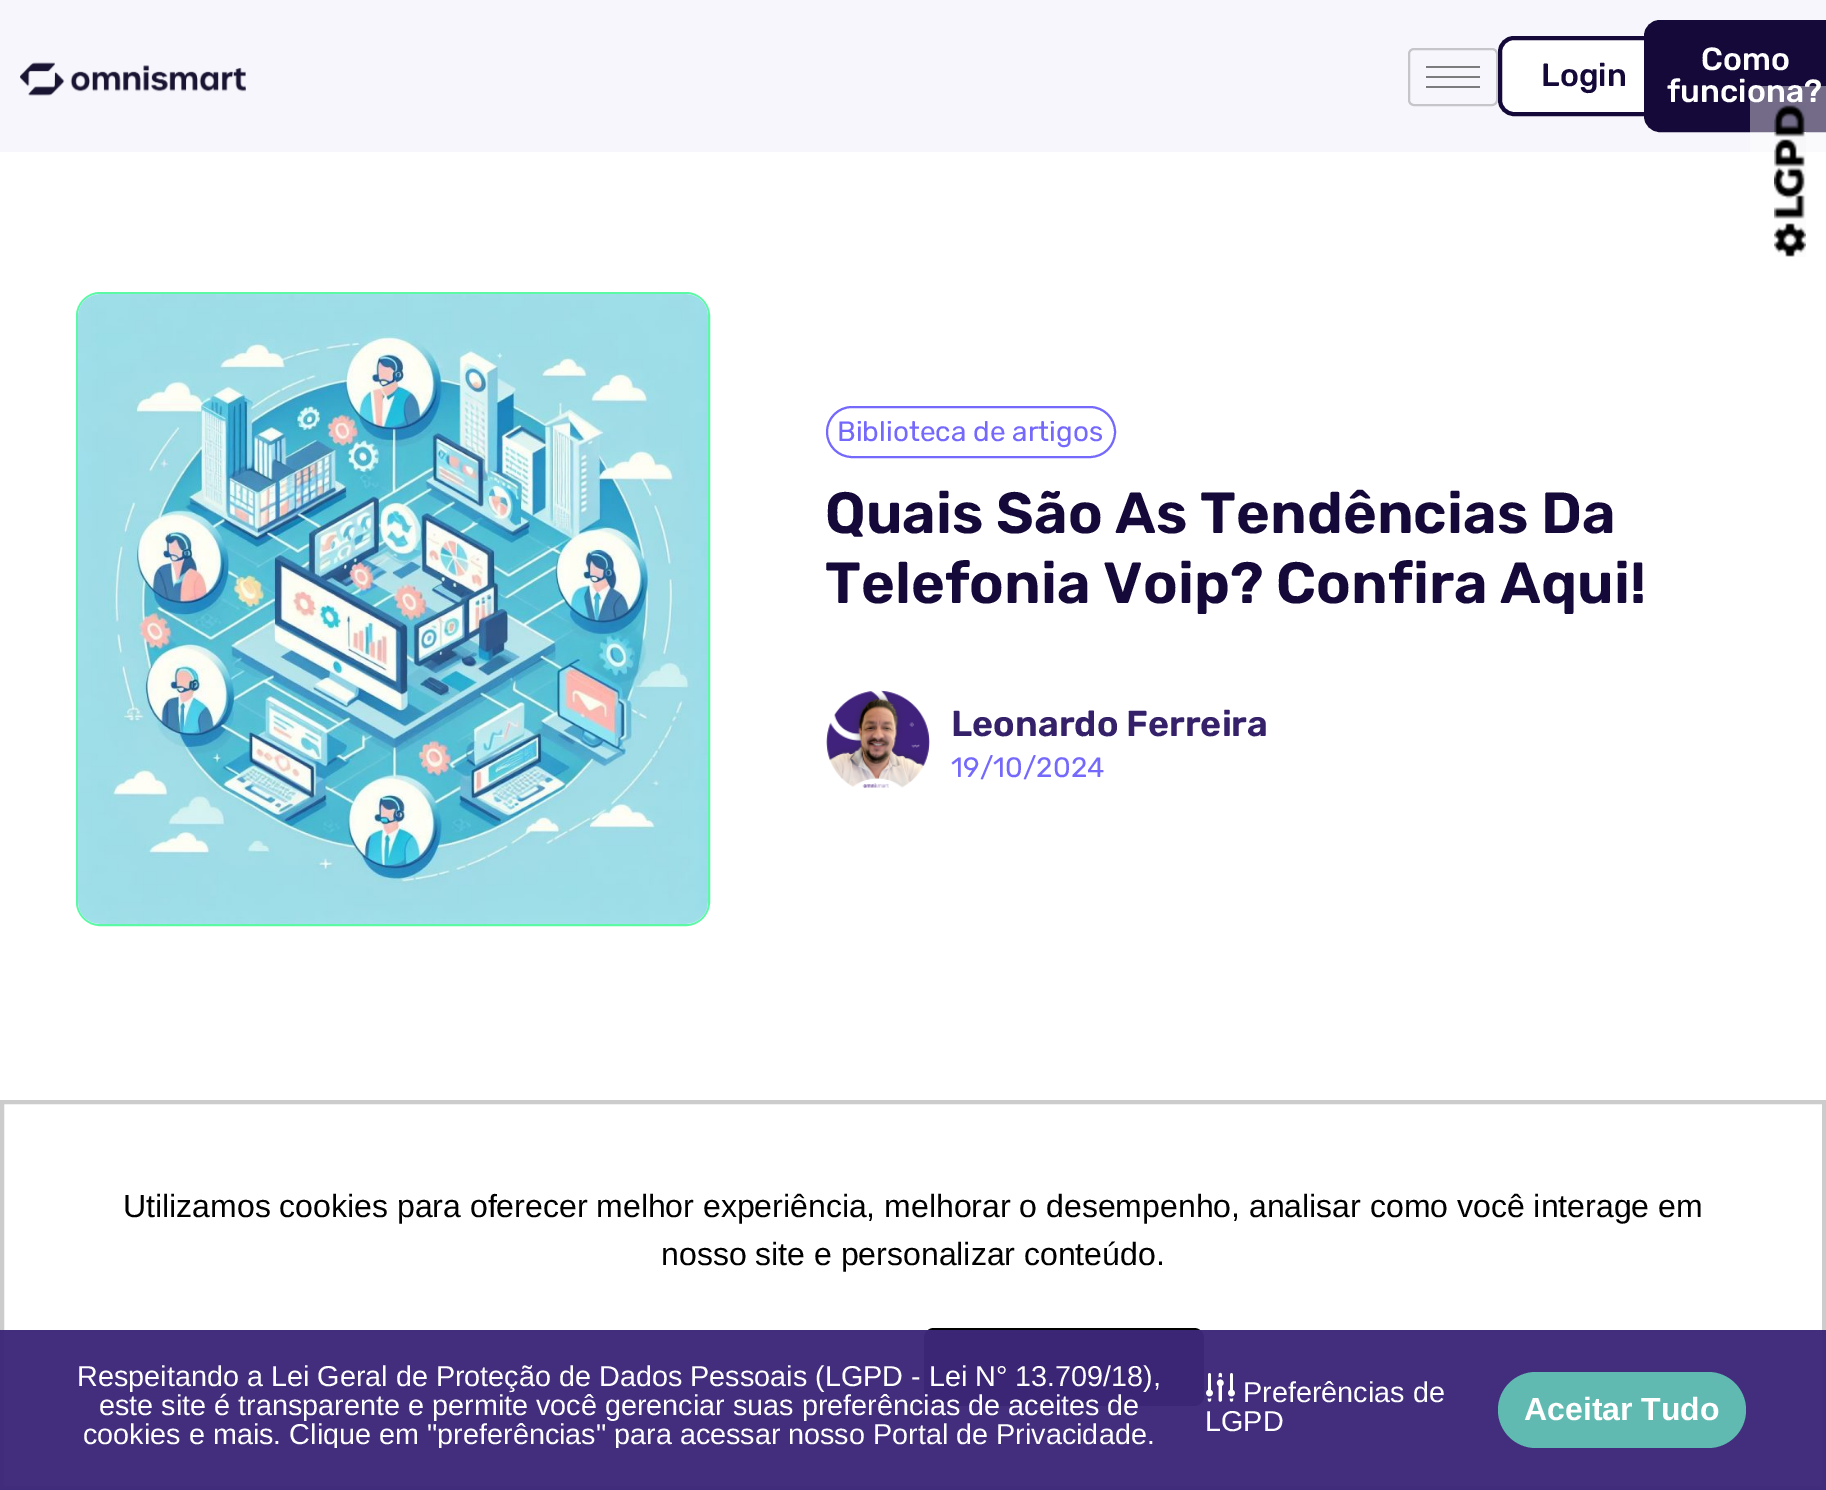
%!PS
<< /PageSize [1826 1490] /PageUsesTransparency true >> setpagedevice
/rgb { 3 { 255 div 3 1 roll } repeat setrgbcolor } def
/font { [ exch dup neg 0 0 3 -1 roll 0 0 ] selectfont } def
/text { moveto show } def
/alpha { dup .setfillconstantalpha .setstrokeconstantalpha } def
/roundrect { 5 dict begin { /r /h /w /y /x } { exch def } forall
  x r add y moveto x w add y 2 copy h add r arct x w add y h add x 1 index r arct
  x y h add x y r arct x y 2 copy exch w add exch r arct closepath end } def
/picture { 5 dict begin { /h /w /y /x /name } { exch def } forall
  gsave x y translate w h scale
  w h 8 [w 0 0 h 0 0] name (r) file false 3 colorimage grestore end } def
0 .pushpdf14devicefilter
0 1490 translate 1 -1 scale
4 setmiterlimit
255 255 255 rgb
0 0 1826 1490 rectfill
247 246 252 rgb
0 0 1826 152 rectfill
(img_01.rgb) 20 62 226 34 picture
198 197 202 rgb
2 setlinewidth
1409 49 88 56 5 roundrect stroke
124 123 126 rgb
1426 66 54 2 rectfill
1426 76 54 2 rectfill
1426 86 54 2 rectfill
255 255 255 rgb
1500 38 168 76 14 roundrect gsave fill grestore
21 9 57 rgb
4 setlinewidth
stroke
1646 22 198 108 14 roundrect gsave fill grestore
stroke
91 249 165 rgb
2 setlinewidth
77 293 632 632 23 roundrect stroke
(img_02.rgb) 78 294 630 630 picture
117 105 251 rgb
827 407 288 50 25 roundrect stroke
(img_03.rgb) 826 690 104 98 picture
204 204 204 rgb
4 setlinewidth
2 1102 1822 386 rectstroke
0 0 0 rgb
924 1328 280 78 10 roundrect fill
0.97 alpha
61 39 121 rgb
0 1330 1826 160 rectfill
1 alpha
(img_05.rgb) 1206 1372 29 30 picture
96 186 177 rgb
1498 1372 248 76 38 roundrect fill
/Rubik-Medium 32 font
21 9 57 rgb
(Login) 1541 86 text
255 255 255 rgb
(Como) 1701 70 text
(funciona?) 1667 102 text
/Rubik-Regular 28 font
117 105 251 rgb
(Biblioteca de artigos) 837 441 text
/Rubik-SemiBold 58 font
21 9 57 rgb
(Quais São As Tendências Da) 825 533 text
(Telefonia Voip? Confira Aqui!) 825 603 text
/Rubik-SemiBold 36 font
53 33 105 rgb
(Leonardo Ferreira) 951 736 text
/Rubik-Regular 28 font
117 105 251 rgb
(19/10/2024) 951 777 text
/LiberationSans-Regular 32 font
0 0 0 rgb
(Utilizamos cookies para oferecer melhor experiência, melhorar o desempenho, analisar como você interage em) 123 1217 text
(nosso site e personalizar conteúdo.) 661 1265 text
0.4 alpha
255 255 255 rgb
1756 86 moveto 70 0 rlineto 0 274 rlineto -70 0 rlineto -3.5 0 -6 -2.5 -6 -6 rcurveto 0 -262 rlineto 0 -3.5 2.5 -6 6 -6 rcurveto closepath fill
1 alpha
(img_04.rgb) 1774 105 32 152 picture
/LiberationSans-Regular 28.8 font
(Respeitando a Lei Geral de Proteção de Dados Pessoais \(LGPD - Lei N° 13.709/18\),) 77 1386 text
(este site é transparente e permite você gerenciar suas preferências de aceites de) 99 1415 text
gsave
32 1362 1174 86 rectclip
(cookies e mais. Clique em "preferências" para acessar) 83 1444 text
grestore
(nosso Portal de Privacidade.) 788 1444 text
(Preferências de) 1243 1402 text
(LGPD) 1205 1431 text
/LiberationSans-Bold 32 font
(Aceitar Tudo) 1524 1420 text
.poppdf14devicefilter showpage
